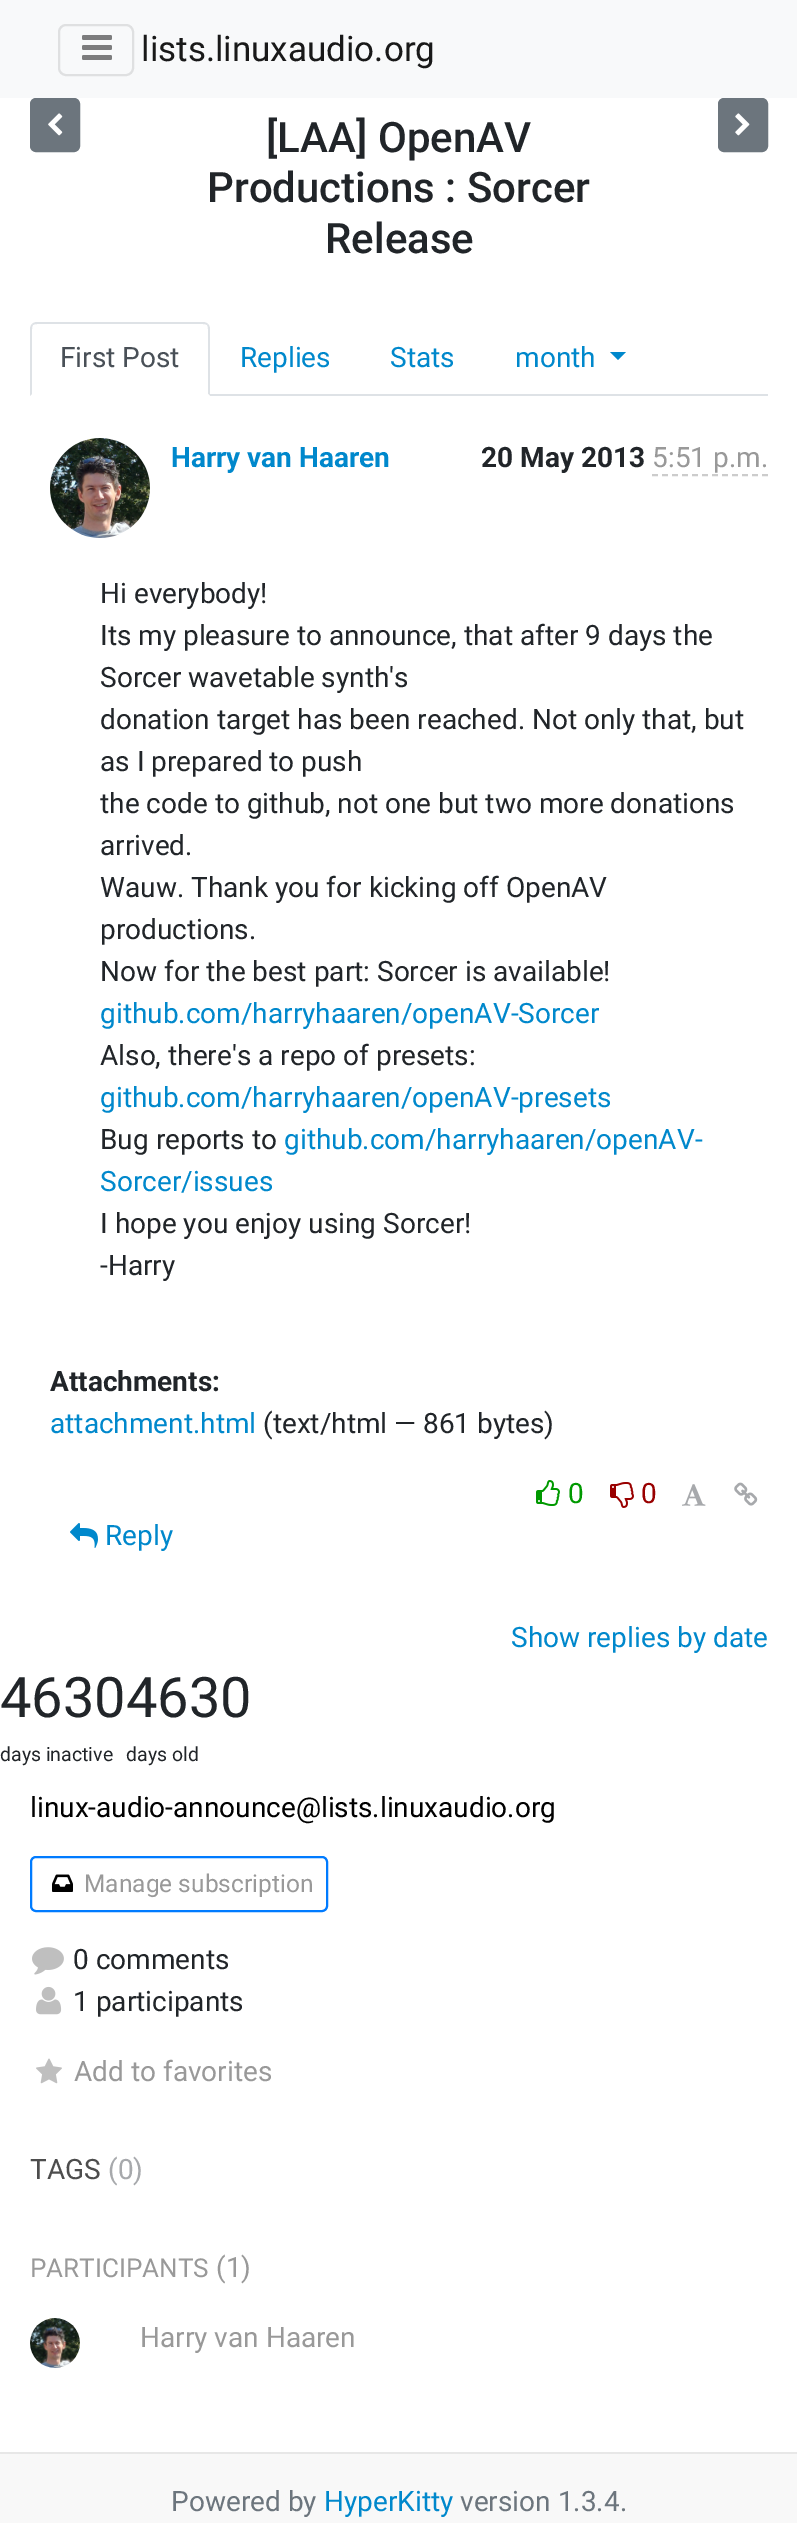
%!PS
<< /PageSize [797 2523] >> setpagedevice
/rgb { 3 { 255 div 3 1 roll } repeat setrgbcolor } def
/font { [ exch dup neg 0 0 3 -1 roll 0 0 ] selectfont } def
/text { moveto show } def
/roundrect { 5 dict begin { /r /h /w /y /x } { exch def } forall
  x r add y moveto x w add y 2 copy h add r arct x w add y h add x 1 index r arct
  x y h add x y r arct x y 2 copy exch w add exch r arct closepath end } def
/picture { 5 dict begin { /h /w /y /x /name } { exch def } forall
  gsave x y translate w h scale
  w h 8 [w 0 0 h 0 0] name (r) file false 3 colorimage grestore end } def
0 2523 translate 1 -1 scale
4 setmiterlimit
255 255 255 rgb
0 0 797 2523 rectfill
248 249 250 rgb
0 0 797 98 rectfill
223 224 225 rgb
2 setlinewidth
59 25 74 50 7 roundrect stroke
(img_01.rgb) 82 35 30 25 picture
108 117 125 rgb
31 99 48 52 5 roundrect gsave fill grestore
stroke
(img_02.rgb) 48 113 15 23 picture
719 99 48 52 5 roundrect gsave fill grestore
stroke
(img_03.rgb) 735 113 15 23 picture
222 226 230 rgb
210 394 558 2 rectfill
37 322 moveto -2 0 -4 1 -5 2 rcurveto 1 1 rlineto 1 -1 3 -1 4 -1 rcurveto 166 0 rlineto 1 0 3 0 4 1 rcurveto 1 -1 rlineto -1 -1 -3 -2 -5 -2 rcurveto closepath fill
210 396 moveto 0 -67 rlineto 0 -2 -1 -4 -2 -5 rcurveto -1 1 rlineto 1 1 1 3 1 4 rcurveto 0 65 rlineto closepath fill
255 255 255 rgb
210 396 moveto -2 -2 rlineto -176 0 rlineto -2 2 rlineto closepath fill
222 226 230 rgb
30 396 moveto 2 -2 rlineto 0 -65 rlineto 0 -1 0 -3 1 -4 rcurveto -1 -1 rlineto -1 1 -2 3 -2 5 rcurveto closepath fill
0 136 204 rgb
610 352 moveto 16 0 rlineto -8 8 rlineto closepath fill
(img_04.rgb) 50 438 100 100 picture
204 204 204 rgb
[6 4] 0 setdash
652 475 moveto 116 0 rlineto stroke
(img_05.rgb) 536 1480 24 26 picture
(img_06.rgb) 610 1482 24 26 picture
(img_07.rgb) 682 1484 24 22 picture
(img_08.rgb) 734 1482 24 24 picture
(img_09.rgb) 70 1523 28 25 picture
0 123 255 rgb
[] 0 setdash
31 1857 296 54 5 roundrect stroke
(img_10.rgb) 52 1874 21 18 picture
(img_11.rgb) 32 1947 32 28 picture
(img_12.rgb) 36 1986 26 29 picture
(img_13.rgb) 36 2058 26 26 picture
(img_14.rgb) 30 2318 50 50 picture
248 248 248 rgb
0 2454 797 69 rectfill
231 231 231 rgb
0 2452 797 2 rectfill
/Roboto-Regular 35 font
25 25 25 rgb
(lists.linuxaudio.org) 141 61 text
/Roboto-Medium 42 font
33 37 41 rgb
([LAA] OpenAV) 266 152 text
(Productions : Sorcer) 207 202 text
(Release) 325 253 text
/Roboto-Regular 28 font
73 80 87 rgb
(First Post) 60 367 text
0 136 204 rgb
(Replies) 240 367 text
(Stats) 390 367 text
(month) 515 367 text
/Roboto-Bold 28 font
(Harry van Haaren) 171 467 text
33 37 41 rgb
(20 May 2013) 481 467 text
/Roboto-Regular 28 font
153 153 153 rgb
(5:51 p.m.) 652 467 text
33 37 41 rgb
(Hi everybody!) 100 603 text
(Its my pleasure to announce, that after 9 days the) 100 645 text
(Sorcer wavetable synth's) 100 687 text
(donation target has been reached. Not only that, but) 100 729 text
(as I prepared to push) 100 771 text
(the code to github, not one but two more donations) 100 813 text
(arrived.) 100 855 text
(Wauw. Thank you for kicking off OpenAV) 100 897 text
(productions.) 100 939 text
(Now for the best part: Sorcer is available!) 100 981 text
0 136 204 rgb
(github.com/harryhaaren/openAV-Sorcer) 100 1023 text
33 37 41 rgb
(Also, there's a repo of presets:) 100 1065 text
0 136 204 rgb
(github.com/harryhaaren/openAV-presets) 100 1107 text
33 37 41 rgb
(Bug reports to) 100 1149 text
0 136 204 rgb
(github.com/harryhaaren/openAV-) 284 1149 text
(Sorcer/issues) 100 1191 text
33 37 41 rgb
(I hope you enjoy using Sorcer!) 100 1233 text
(-Harry) 100 1275 text
/Roboto-Bold 28 font
(Attachments:) 50 1391 text
/Roboto-Regular 28 font
0 136 204 rgb
(attachment.html) 50 1433 text
33 37 41 rgb
(\(text/html — 861 bytes\)) 263 1433 text
0 153 0 rgb
(0) 568 1503 text
153 0 0 rgb
(0) 641 1503 text
0 136 204 rgb
(Reply) 105 1545 text
(Show replies by date) 511 1647 text
/Roboto-Regular 56 font
33 37 41 rgb
(46304630) 0 1717 text
/Roboto-Regular 19.5 font
(days inactive) 0 1761 text
(days old) 126 1761 text
/Roboto-Regular 28 font
0 0 0 rgb
(linux-audio-announce@lists.linuxaudio.org) 30 1817 text
/Roboto-Regular 24.5 font
153 153 153 rgb
(Manage subscription) 84 1892 text
/Roboto-Regular 28 font
33 37 41 rgb
(0 comments) 73 1969 text
(1 participants) 73 2011 text
153 153 153 rgb
(Add to favorites) 74 2081 text
77 77 77 rgb
(TAGS) 30 2179 text
167 169 172 rgb
(\(0\)) 108 2179 text
/Roboto-Regular 26 font
153 153 153 rgb
(PARTICIPANTS) 30 2277 text
/Roboto-Regular 28 font
(\(1\)) 216 2277 text
(Harry van Haaren) 140 2347 text
108 117 125 rgb
(Powered by) 171 2511 text
0 136 204 rgb
(HyperKitty) 324 2511 text
108 117 125 rgb
(version 1.3.4.) 460 2511 text
showpage
